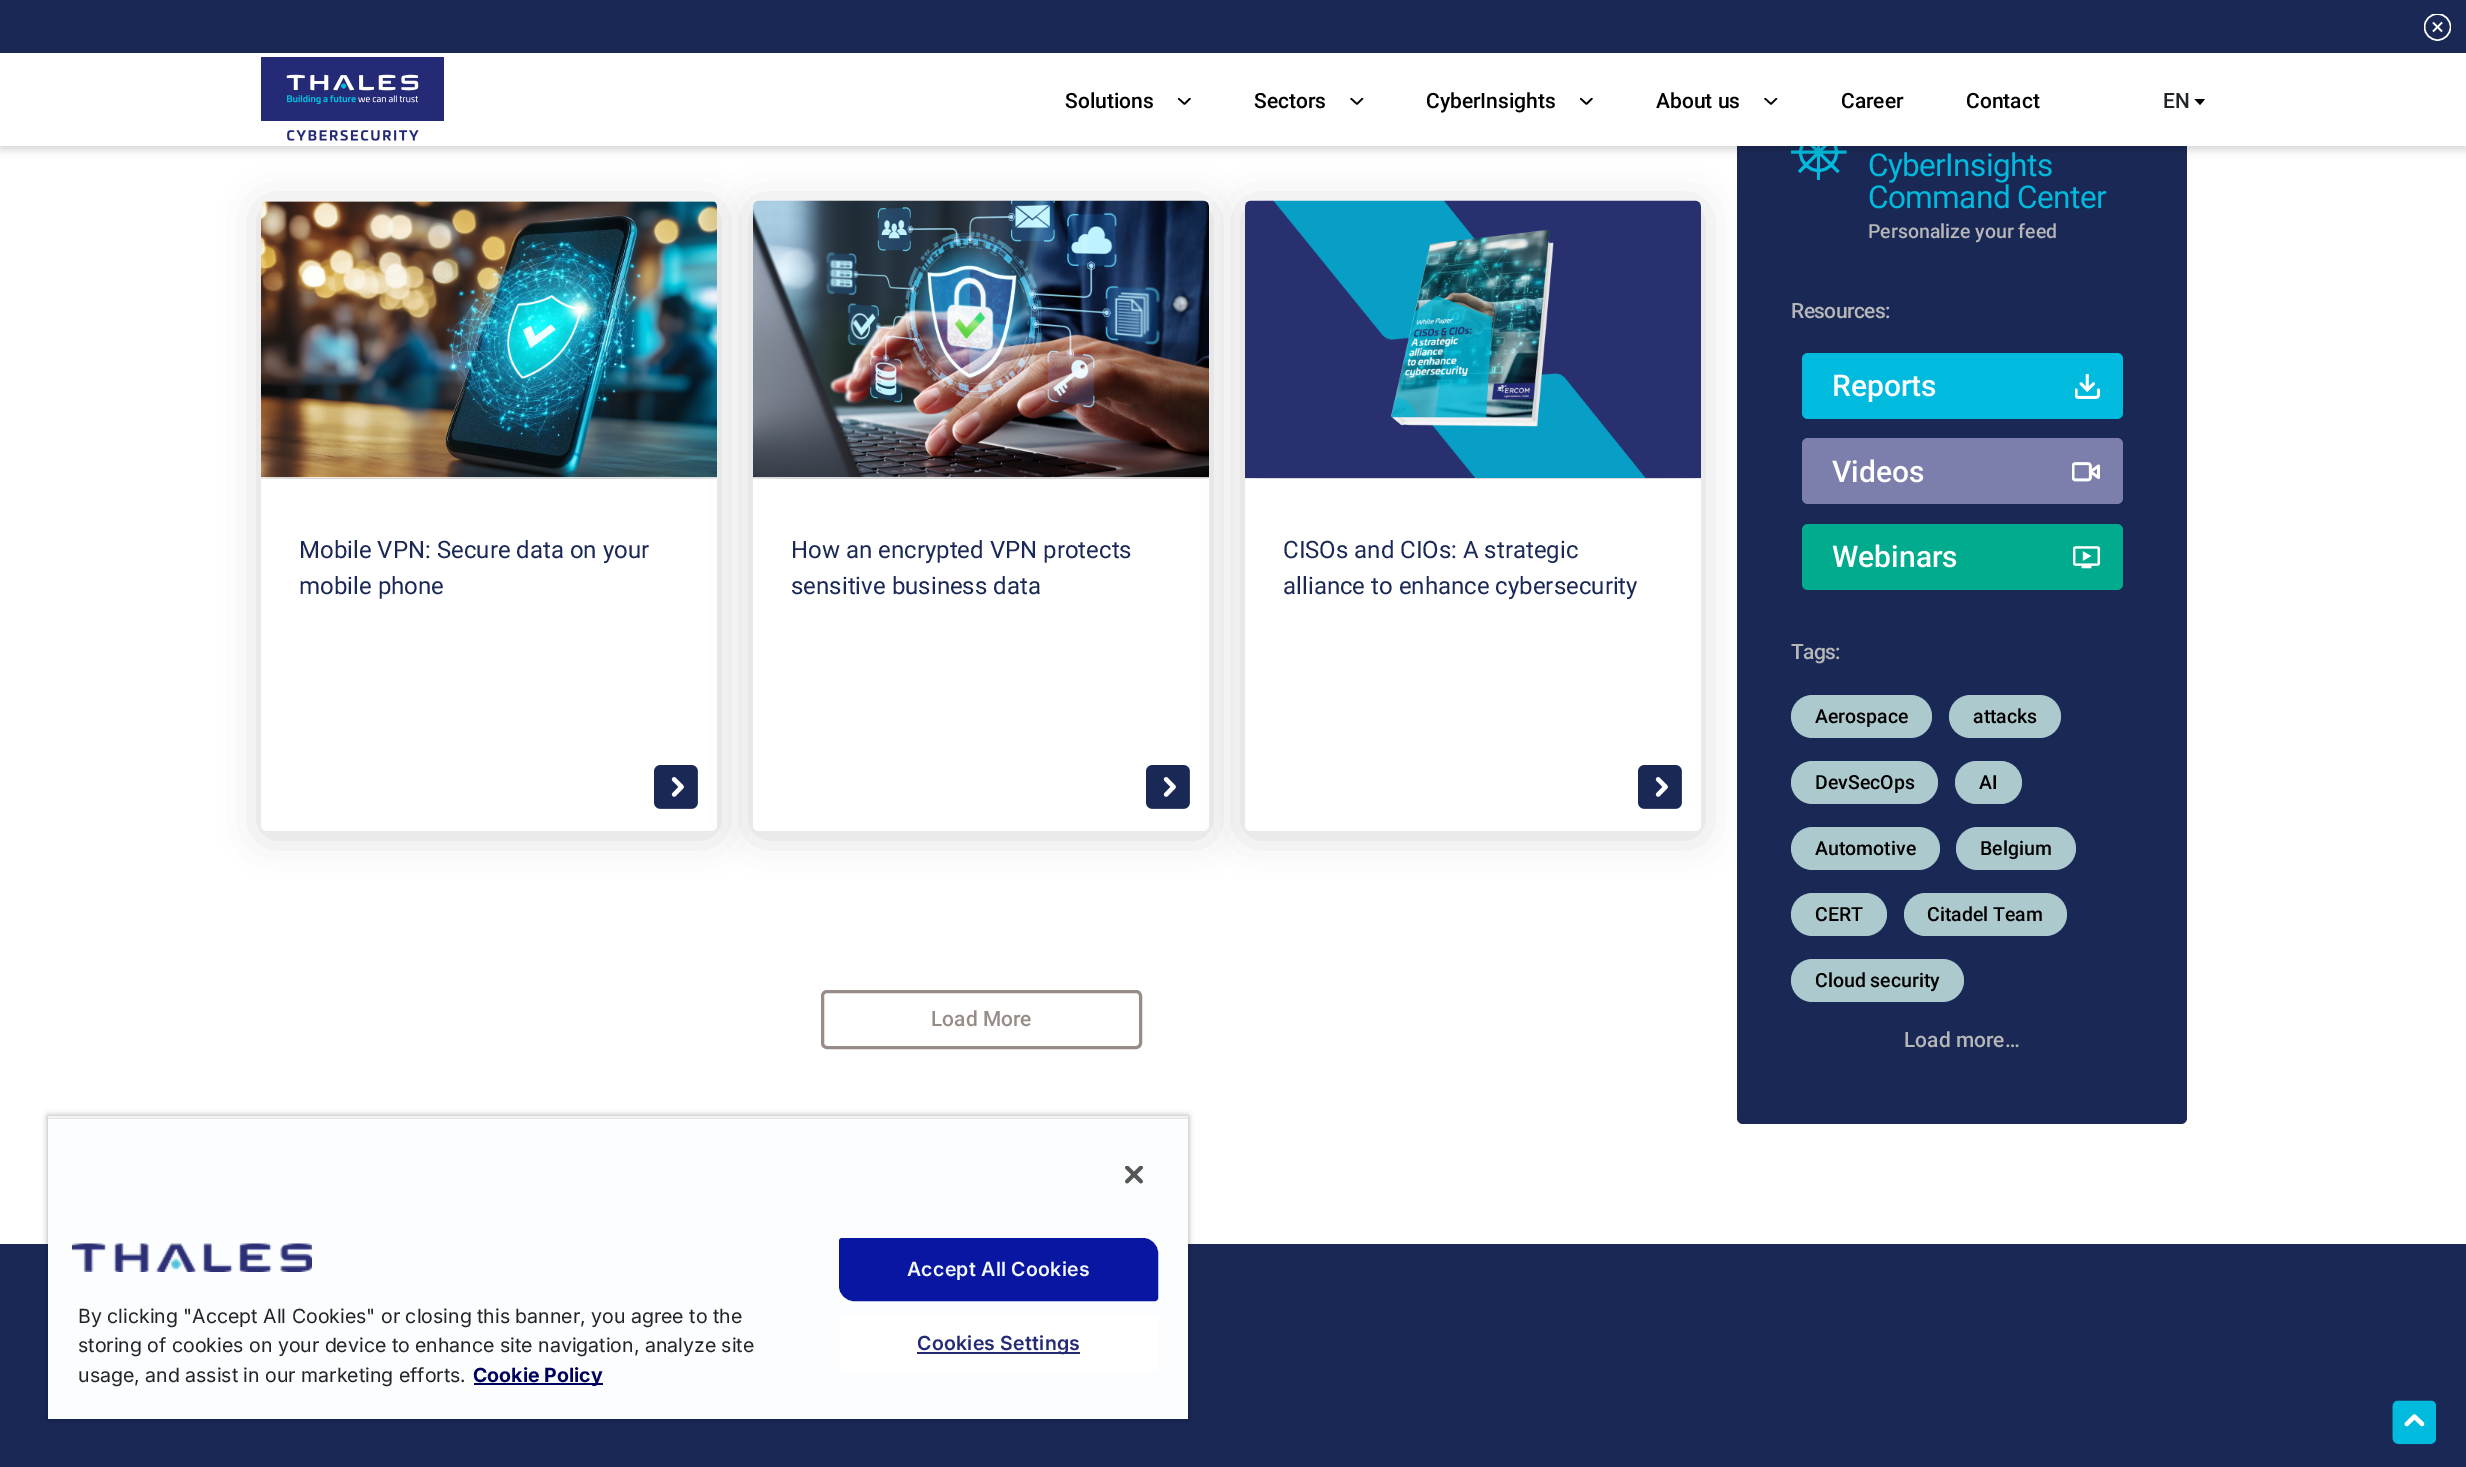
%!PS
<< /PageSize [2466 1467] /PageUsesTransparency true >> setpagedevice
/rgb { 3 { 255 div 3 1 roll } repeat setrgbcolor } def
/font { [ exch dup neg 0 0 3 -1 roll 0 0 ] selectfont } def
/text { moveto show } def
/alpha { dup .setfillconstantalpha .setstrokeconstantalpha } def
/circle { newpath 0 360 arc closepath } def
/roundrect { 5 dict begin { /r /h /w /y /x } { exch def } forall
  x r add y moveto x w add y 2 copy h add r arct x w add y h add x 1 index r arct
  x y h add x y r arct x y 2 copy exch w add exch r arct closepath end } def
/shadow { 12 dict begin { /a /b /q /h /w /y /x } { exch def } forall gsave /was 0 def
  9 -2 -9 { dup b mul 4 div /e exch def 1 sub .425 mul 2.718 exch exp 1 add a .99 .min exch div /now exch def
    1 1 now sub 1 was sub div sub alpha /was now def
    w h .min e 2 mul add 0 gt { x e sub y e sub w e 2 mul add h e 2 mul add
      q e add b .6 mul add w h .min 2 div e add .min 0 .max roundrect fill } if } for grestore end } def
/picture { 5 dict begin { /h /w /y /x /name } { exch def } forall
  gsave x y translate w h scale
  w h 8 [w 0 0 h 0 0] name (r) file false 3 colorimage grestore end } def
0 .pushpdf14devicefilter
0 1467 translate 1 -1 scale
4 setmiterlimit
255 255 255 rgb
0 0 2466 1467 rectfill
0 0 0 rgb
261 206 456 630 6 20 0.16 shadow
(img_02.rgb) 261 201 456 277 picture
255 255 255 rgb
261 479 moveto 456 0 rlineto 0 346 rlineto 0 3.5 -2.5 6 -6 6 rcurveto -444 0 rlineto -3.5 0 -6 -2.5 -6 -6 rcurveto closepath fill
(img_03.rgb) 654 765 44 44 picture
0 0 0 rgb
753 206 456 630 6 20 0.16 shadow
(img_04.rgb) 753 200 456 278 picture
255 255 255 rgb
753 479 moveto 456 0 rlineto 0 346 rlineto 0 3.5 -2.5 6 -6 6 rcurveto -444 0 rlineto -3.5 0 -6 -2.5 -6 -6 rcurveto closepath fill
(img_03.rgb) 1146 765 44 44 picture
0 0 0 rgb
1245 206 456 630 6 20 0.16 shadow
26 40 86 rgb
1737 56 450 1068 6 roundrect fill
0 187 221 rgb
1817 146 3 34 rectfill
3 setlinewidth
1846.5 152 moveto -55.5 0 rlineto 1838.5 132.5 moveto -39.5 39.5 rlineto 1838.5 172 moveto -39.5 -39.5 rlineto stroke
1818.5 152.5 18 circle stroke
0 0 0 rgb
0 5 2466 145 0 4.5 0.16 shadow
255 255 255 rgb
0 53 2466 93 rectfill
26 40 86 rgb
0 0 2466 53 rectfill
255 255 255 rgb
1.5 setlinewidth
2433 22.5 moveto 9 9 rlineto 2442 22.5 moveto -9 9 rlineto stroke
gsave
2424 14 27 27 rectclip
2437.5 27 13 circle stroke
grestore
(img_01.rgb) 261 57 183 84 picture
gsave
1178 98 13 7 rectclip
0 0 0 rgb
1.6 setlinewidth
1 setlinecap
1 setlinejoin
1190 98.5 moveto -5.5 5.5 rlineto -6 -5.5 rlineto stroke
grestore
gsave
1350 98 14 7 rectclip
0 0 0 rgb
1.6 setlinewidth
1 setlinecap
1 setlinejoin
1362.5 98.5 moveto -5.5 5.5 rlineto -6 -5.5 rlineto stroke
grestore
gsave
1580 98 13 7 rectclip
0 0 0 rgb
1.6 setlinewidth
1 setlinecap
1 setlinejoin
1592 98.5 moveto -5.5 5.5 rlineto -6 -5.5 rlineto stroke
grestore
gsave
1764 98 14 7 rectclip
0 0 0 rgb
1.6 setlinewidth
1 setlinecap
1 setlinejoin
1776.5 98.5 moveto -5.5 5.5 rlineto -6 -5.5 rlineto stroke
grestore
0 0 0 rgb
2200 105 moveto -5.5 -6 rlineto 10.5 0 rlineto closepath fill
(img_05.rgb) 1245 200 456 278 picture
255 255 255 rgb
1245 479 moveto 456 0 rlineto 0 346 rlineto 0 3.5 -2.5 6 -6 6 rcurveto -444 0 rlineto -3.5 0 -6 -2.5 -6 -6 rcurveto closepath fill
(img_03.rgb) 1638 765 44 44 picture
151 140 135 rgb
3 setlinewidth
822.5 991.5 318 56 4.5 roundrect stroke
0 187 221 rgb
1802 353 321 66 6 roundrect fill
(img_06.rgb) 2075 374 25 25 picture
124 127 171 rgb
1802 438 321 66 6 roundrect fill
(img_07.rgb) 2072 462 28 20 picture
0 171 142 rgb
1802 524 321 66 6 roundrect fill
(img_08.rgb) 2073 546 27 23 picture
172 201 206 rgb
1791 695 141 43 21.5 roundrect fill
1949 695 112 43 21.5 roundrect fill
1791 761 147 43 21.5 roundrect fill
1955 761 67 43 21.5 roundrect fill
1791 827 149 43 21.5 roundrect fill
1956 827 120 43 21.5 roundrect fill
1791 893 96 43 21.5 roundrect fill
1904 893 163 43 21.5 roundrect fill
1791 959 173 43 21.5 roundrect fill
26 40 86 rgb
0 1244 2466 223 rectfill
(img_09.rgb) 2392 1400 44 45 picture
gsave
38 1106 moveto 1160 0 rlineto 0 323 rlineto -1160 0 rlineto closepath 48 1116 moveto 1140 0 rlineto 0 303 rlineto -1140 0 rlineto closepath eoclip newpath
0 0 0 rgb
48 1116 1140 303 0 3 0.35 shadow
grestore
gsave
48 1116 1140 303 rectclip
0 0 0 rgb
48 1119 1140 300 0 3 0.2 shadow
grestore
251 253 254 rgb
48 1119 1140 300 rectfill
(img_10.rgb) 1125 1166 18 18 picture
(img_11.rgb) 72 1243 240 29 picture
0 0 92 rgb
474 1383 129 2 rectfill
8 22 161 rgb
842 1239 moveto 301 0 rlineto 7.5 0 14 6.5 14 14 rcurveto 0 45 rlineto 0 1 -1 2 -2 2 rcurveto -301 0 rlineto -7.5 0 -14 -6.5 -14 -14 rcurveto 0 -45 rlineto 0 -1 1 -2 2 -2 rcurveto closepath gsave fill grestore
2 setlinewidth
stroke
255 255 255 rgb
839 1316 319 55 3 roundrect fill
36 42 117 rgb
917 1352 163 2 rectfill
/Roboto-Medium 21 font
0 0 0 rgb
(Solutions) 1065 108 text
(Sectors) 1254 108 text
(CyberInsights) 1426 108 text
(About us) 1656 108 text
(Career) 1841 108 text
(Contact) 1966 108 text
33 37 41 rgb
(EN) 2163 108 text
/Roboto-Regular 24 font
26 40 86 rgb
(Mobile VPN: Secure data on your) 299 558 text
(mobile phone) 299 594 text
(How an encrypted VPN protects) 791 558 text
(sensitive business data) 791 594 text
(CISOs and CIOs: A strategic) 1283 558 text
(alliance to enhance cybersecurity) 1283 594 text
/Roboto-Medium 21 font
151 140 135 rgb
(Load More) 931 1026 text
/Roboto-Regular 31.5 font
0 187 221 rgb
1868 176 moveto -0.6 0 (CyberInsights) ashow
1868 208 moveto -0.6 0 (Command Center) ashow
/Roboto-Medium 19.5 font
183 183 183 rgb
(Personalize your feed) 1868 238 text
/Roboto-Medium 21 font
1791 318 moveto -0.6 0 (Resources:) ashow
/Roboto-Medium 30 font
255 255 255 rgb
(Reports) 1832 396 text
(Videos) 1832 482 text
(Webinars) 1832 567 text
/Roboto-Medium 21 font
183 183 183 rgb
1791 659 moveto -0.6 0 (Tags:) ashow
/Roboto-Medium 19.5 font
0 0 0 rgb
(Aerospace) 1815 723 text
(attacks) 1973 723 text
(DevSecOps) 1815 789 text
(AI) 1979 789 text
(Automotive) 1815 855 text
(Belgium) 1980 855 text
(CERT) 1815 921 text
(Citadel Team) 1927 921 text
(Cloud security) 1815 987 text
/Roboto-Medium 21 font
183 183 183 rgb
(Load more…) 1904 1047 text
/Inter-Regular 19.5 font
33 37 41 rgb
(By clicking "Accept All Cookies" or closing this banner, you agree to the) 78 1323 text
(storing of cookies on your device to enhance site navigation, analyze site) 78 1352 text
(usage, and assist in our marketing efforts.) 78 1382 text
/Inter-Bold 19.5 font
0 0 92 rgb
(Cookie Policy) 473 1382 text
/Inter-SemiBold 19.5 font
244 249 251 rgb
907 1276 moveto 0.25 0 (Accept All Cookies) ashow
36 42 117 rgb
917 1350 moveto 0.25 0 (Cookies Settings) ashow
.poppdf14devicefilter showpage
